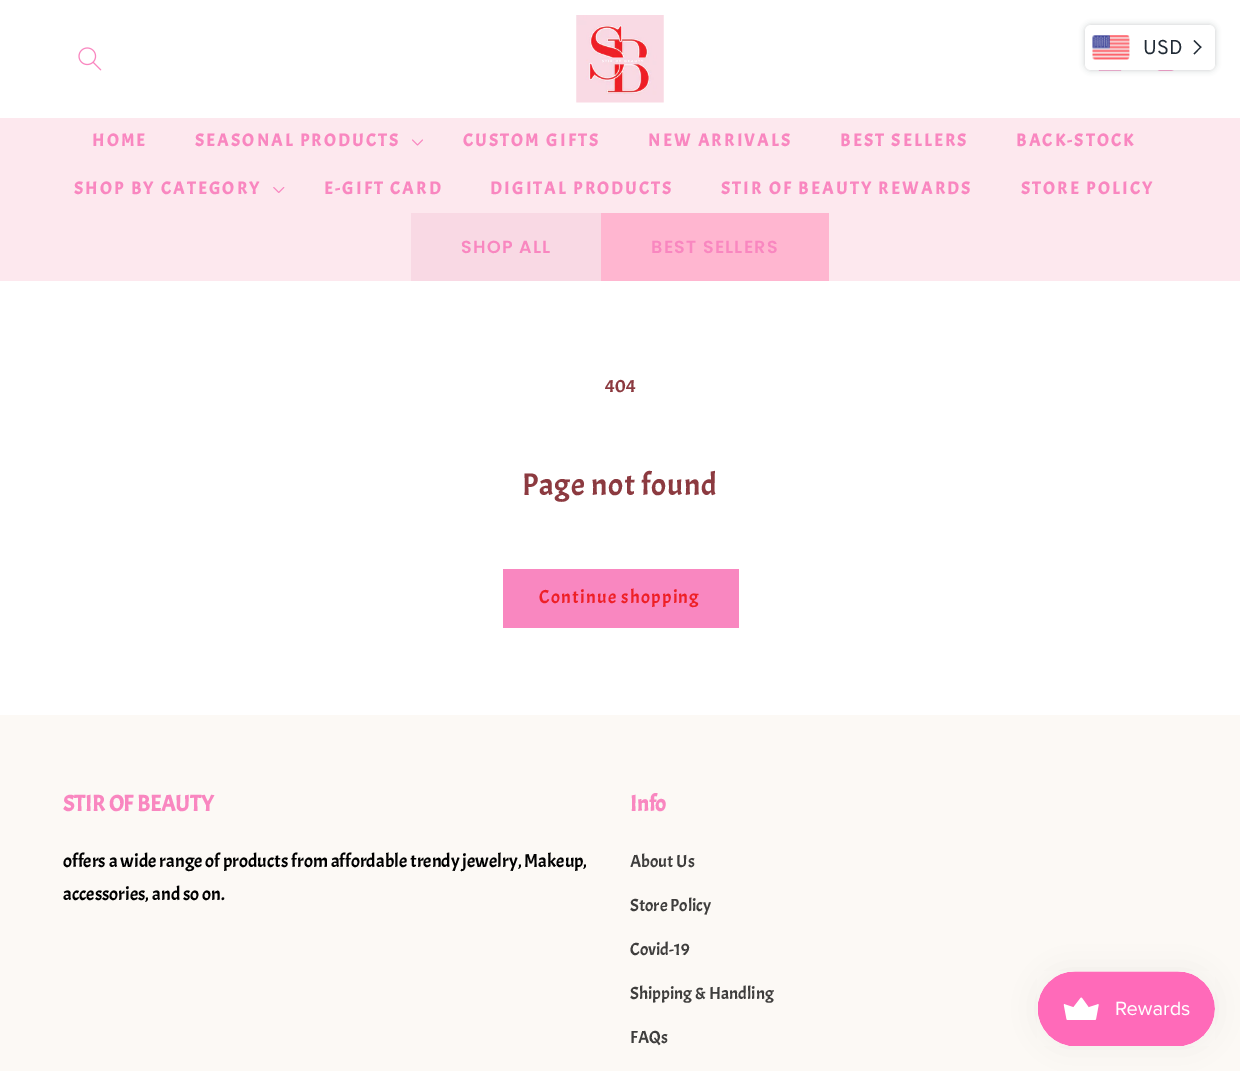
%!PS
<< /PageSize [1240 1071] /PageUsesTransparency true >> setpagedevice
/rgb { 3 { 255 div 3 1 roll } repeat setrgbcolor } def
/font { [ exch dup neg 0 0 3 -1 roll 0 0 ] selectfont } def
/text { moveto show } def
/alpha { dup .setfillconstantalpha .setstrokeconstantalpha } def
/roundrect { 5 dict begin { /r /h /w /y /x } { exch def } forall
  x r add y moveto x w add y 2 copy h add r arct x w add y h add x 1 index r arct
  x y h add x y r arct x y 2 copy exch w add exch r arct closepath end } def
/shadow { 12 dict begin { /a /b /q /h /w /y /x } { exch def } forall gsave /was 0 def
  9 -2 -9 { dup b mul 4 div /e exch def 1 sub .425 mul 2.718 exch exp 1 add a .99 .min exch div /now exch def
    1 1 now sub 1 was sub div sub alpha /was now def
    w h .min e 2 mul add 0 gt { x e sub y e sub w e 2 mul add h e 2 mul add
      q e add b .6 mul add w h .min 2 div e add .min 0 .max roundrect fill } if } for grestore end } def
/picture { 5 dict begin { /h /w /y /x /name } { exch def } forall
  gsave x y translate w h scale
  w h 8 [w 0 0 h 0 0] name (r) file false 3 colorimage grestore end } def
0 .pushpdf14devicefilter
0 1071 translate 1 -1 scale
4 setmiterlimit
255 255 255 rgb
0 0 1240 1071 rectfill
(img_04.rgb) 1098 70 24 1 picture
(img_05.rgb) 1157 70 17 1 picture
33 43 54 rgb
1085 25 130 45 6 3 0.25 shadow
255 255 255 rgb
1085 25 130 45 6 roundrect fill
(img_01.rgb) 1092 35 38 25 picture
33 43 54 rgb
1193.5 41 moveto 1 -1 rlineto 7 7 rlineto -1 1 rlineto closepath fill
1193.5 53.5 moveto 7 -7 rlineto 1 0.5 rlineto -7 7.5 rlineto closepath fill
(img_02.rgb) 78 47 24 24 picture
(img_03.rgb) 576 15 88 88 picture
253 232 238 rgb
0 118 1240 163 rectfill
(img_06.rgb) 412 139 11 7 picture
(img_07.rgb) 273 187 12 6 picture
249 217 228 rgb
411 213 190 68 rectfill
255 182 208 rgb
601 213 228 68 rectfill
249 135 192 rgb
503 569 236 59 rectfill
252 249 245 rgb
0 715 1240 356 rectfill
0 0 0 rgb
1038 971 177 75 37.5 15.5 0.05 shadow
(img_08.rgb) 1037 971 178 75 picture
/Overpass-Regular 20 font
33 43 54 rgb
(USD) 1143 54 text
/Acme-Bold 17.5 font
249 135 192 rgb
92 146 moveto 2.5 0 (HOME) ashow
195 146 moveto 2.5 0 (SEASONAL PRODUCTS) ashow
463 146 moveto 2.5 0 (CUSTOM GIFTS) ashow
648 146 moveto 2.5 0 (NEW ARRIVALS) ashow
840 146 moveto 2.5 0 (BEST SELLERS) ashow
1016 146 moveto 2.5 0 (BACK-STOCK) ashow
74 194 moveto 2.5 0 (SHOP BY CATEGORY) ashow
324 194 moveto 2.5 0 (E-GIFT CARD) ashow
490 194 moveto 2.5 0 (DIGITAL PRODUCTS) ashow
721 194 moveto 2.5 0 (STIR OF BEAUTY REWARDS) ashow
1021 194 moveto 2.5 0 (STORE POLICY) ashow
/Poppins-SemiBold 17.5 font
461 253 moveto 1.25 0 (SHOP ALL) ashow
651 253 moveto 1.25 0 (BEST SELLERS) ashow
/Acme-Regular 18.75 font
140 58 64 rgb
(404) 605 392 text
/Acme-Regular 31.25 font
522 495 moveto 0.75 0 (Page not found) ashow
/Acme-Regular 18.75 font
238 32 39 rgb
539 603 moveto 1.25 0 (Continue shopping) ashow
/Acme-Bold 22.5 font
249 135 192 rgb
(STIR OF BEAUTY) 63 811 text
/Acme-Regular 18.75 font
0 0 0 rgb
(offers a wide range of products from affordable trendy jewelry, Makeup,) 63 867 text
(accessories, and so on.) 63 900 text
/Acme-Bold 22.5 font
249 135 192 rgb
(Info) 630 811 text
/Acme-Regular 17.5 font
63 62 61 rgb
(About Us) 630 867 text
(Store Policy) 630 911 text
(Covid-19) 630 955 text
(Shipping & Handling) 630 999 text
(FAQs) 630 1043 text
.poppdf14devicefilter showpage
